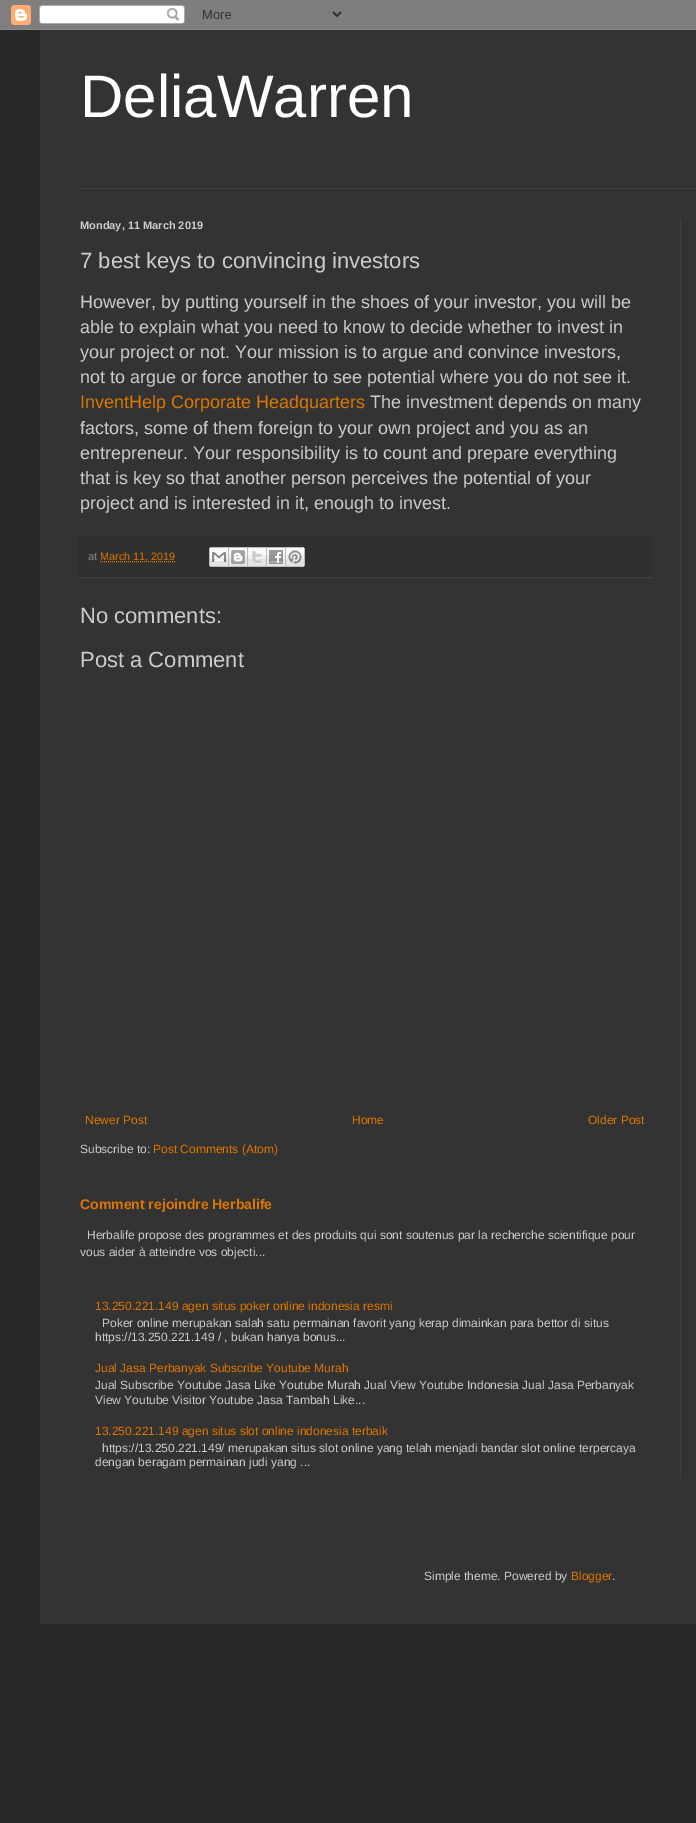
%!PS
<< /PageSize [696 1823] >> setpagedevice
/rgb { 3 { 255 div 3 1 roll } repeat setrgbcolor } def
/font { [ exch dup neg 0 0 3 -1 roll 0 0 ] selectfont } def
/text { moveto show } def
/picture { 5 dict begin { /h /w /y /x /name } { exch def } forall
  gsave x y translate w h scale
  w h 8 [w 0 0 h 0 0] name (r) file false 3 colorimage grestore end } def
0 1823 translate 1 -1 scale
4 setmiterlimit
41 41 41 rgb
0 0 696 1823 rectfill
(img_01.rgb) 0 0 696 30 picture
51 51 51 rgb
40 30 656 1594 rectfill
64 64 64 rgb
80 188 616 1 rectfill
48 48 48 rgb
78 536 574 41 rectfill
68 68 68 rgb
78 577 574 1 rectfill
221 119 0 rgb
[1 1] 0 setdash
100 561.5 moveto 75 0 rlineto stroke
(img_02.rgb) 209 547 20 20 picture
(img_03.rgb) 229 547 19 20 picture
(img_04.rgb) 248 547 19 20 picture
(img_05.rgb) 267 547 19 20 picture
(img_06.rgb) 286 547 19 20 picture
64 64 64 rgb
680 219 1 1259 rectfill
/LiberationSans-Regular 60 font
255 255 255 rgb
(DeliaWarren) 80 117 text
/LiberationSans-Bold 11 font
204 204 204 rgb
(Monday, 11 March 2019) 80 229 text
/LiberationSans-Regular 22 font
(7 best keys to convincing investors) 80 268 text
/LiberationSans-Regular 18 font
(However, by putting yourself in the shoes of your investor, you will be) 80 308 text
(able to explain what you need to know to decide whether to invest in) 80 333 text
(your project or not. Your mission is to argue and convince investors,) 80 358 text
(not to argue or force another to see potential where you do not see it.) 80 383 text
221 119 0 rgb
(InventHelp Corporate Headquarters) 80 408 text
204 204 204 rgb
(The investment depends on many) 370 408 text
(factors, some of them foreign to your own project and you as an) 80 434 text
(entrepreneur. Your responsibility is to count and prepare everything) 80 459 text
(that is key so that another person perceives the potential of your) 80 484 text
(project and is interested in it, enough to invest.) 80 509 text
/LiberationSans-Regular 10.75 font
136 136 136 rgb
(at) 88 560 text
221 119 0 rgb
(March 11, 2019) 100 560 text
/LiberationSans-Regular 22 font
204 204 204 rgb
(No comments:) 80 623 text
(Post a Comment) 80 667 text
/LiberationSans-Regular 12 font
221 119 0 rgb
(Newer Post) 85 1124 text
(Home) 352 1124 text
(Older Post) 588 1124 text
204 204 204 rgb
(Subscribe to:) 80 1153 text
221 119 0 rgb
(Post Comments \(Atom\)) 153 1153 text
/LiberationSans-Bold 14 font
(Comment rejoindre Herbalife) 80 1209 text
/LiberationSans-Regular 12 font
204 204 204 rgb
(Herbalife propose des programmes et des produits qui sont soutenus par la recherche scientifique pour) 87 1239 text
(vous aider à atteindre vos objecti...) 80 1256 text
221 119 0 rgb
(13.250.221.149 agen situs poker online indonesia resmi) 95 1310 text
204 204 204 rgb
(Poker online merupakan salah satu permainan favorit yang kerap dimainkan para bettor di situs) 102 1327 text
(https://13.250.221.149 / , bukan hanya bonus...) 95 1341 text
221 119 0 rgb
(Jual Jasa Perbanyak Subscribe Youtube Murah) 95 1372 text
204 204 204 rgb
(Jual Subscribe Youtube Jasa Like Youtube Murah Jual View Youtube Indonesia Jual Jasa Perbanyak) 95 1389 text
(View Youtube Visitor Youtube Jasa Tambah Like...) 95 1404 text
221 119 0 rgb
(13.250.221.149 agen situs slot online indonesia terbaik) 95 1435 text
204 204 204 rgb
(https://13.250.221.149/ merupakan situs slot online yang telah menjadi bandar slot online terpercaya) 102 1452 text
(dengan beragam permainan judi yang ...) 95 1466 text
(Simple theme. Powered by) 424 1580 text
221 119 0 rgb
(Blogger) 571 1580 text
204 204 204 rgb
(.) 612 1580 text
showpage
